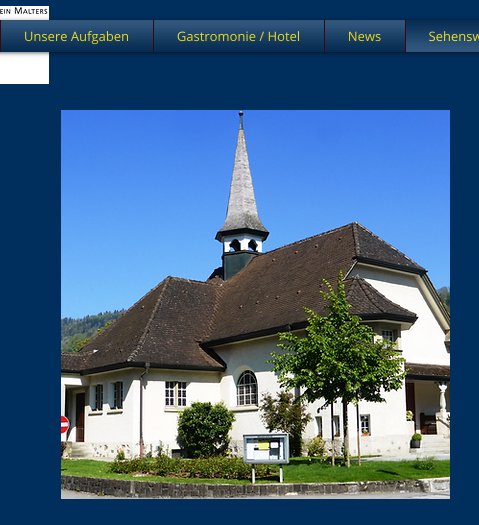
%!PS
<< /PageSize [479 525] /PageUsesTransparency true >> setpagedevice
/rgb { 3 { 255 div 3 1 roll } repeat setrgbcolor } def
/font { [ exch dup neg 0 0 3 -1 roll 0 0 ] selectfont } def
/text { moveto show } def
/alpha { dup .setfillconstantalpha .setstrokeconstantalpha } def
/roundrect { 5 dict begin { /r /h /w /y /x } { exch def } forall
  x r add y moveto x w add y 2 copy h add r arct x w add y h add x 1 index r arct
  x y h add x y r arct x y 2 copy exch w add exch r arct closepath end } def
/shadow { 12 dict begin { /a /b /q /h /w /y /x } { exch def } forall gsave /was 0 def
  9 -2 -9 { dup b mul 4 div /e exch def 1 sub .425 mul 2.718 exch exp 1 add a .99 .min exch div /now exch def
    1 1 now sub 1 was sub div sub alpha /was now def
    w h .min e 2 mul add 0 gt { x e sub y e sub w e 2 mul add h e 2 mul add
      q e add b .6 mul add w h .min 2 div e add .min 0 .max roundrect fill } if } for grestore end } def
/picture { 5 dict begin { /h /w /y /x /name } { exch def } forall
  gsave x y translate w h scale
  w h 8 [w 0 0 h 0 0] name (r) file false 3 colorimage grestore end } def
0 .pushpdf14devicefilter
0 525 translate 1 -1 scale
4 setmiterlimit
0 46 93 rgb
0 0 479 525 rectfill
(img_01.rgb) 0 6 49 78 picture
0 0 0 rgb
-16 21 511 32 10 2 0.6 shadow
0 46 93 rgb
1 20 152 32 rectfill
68 5 6 rgb
0 20 1 32 rectfill
0 46 93 rgb
154 20 170 32 rectfill
68 5 6 rgb
153 20 1 32 rectfill
0 46 93 rgb
325 20 80 32 rectfill
68 5 6 rgb
324 20 1 32 rectfill
0 46 93 rgb
406 20 73 32 rectfill
68 5 6 rgb
405 20 1 32 rectfill
(img_10.rgb) 61 110 389 389 picture
/OpenSans-Regular 13 font
255 233 0 rgb
(Unsere Aufgaben) 24 41 text
(img_02.rgb) 1 20 152 32 picture
(img_03.rgb) 1 28 152 24 picture
(Gastromonie / Hotel) 177 41 text
(img_04.rgb) 154 20 170 32 picture
(img_05.rgb) 154 28 170 24 picture
(News) 348 41 text
(img_06.rgb) 325 20 80 32 picture
(img_07.rgb) 325 28 80 24 picture
(Sehensw) 429 41 text
(img_08.rgb) 406 20 73 22 picture
(img_09.rgb) 406 20 73 32 picture
.poppdf14devicefilter showpage
